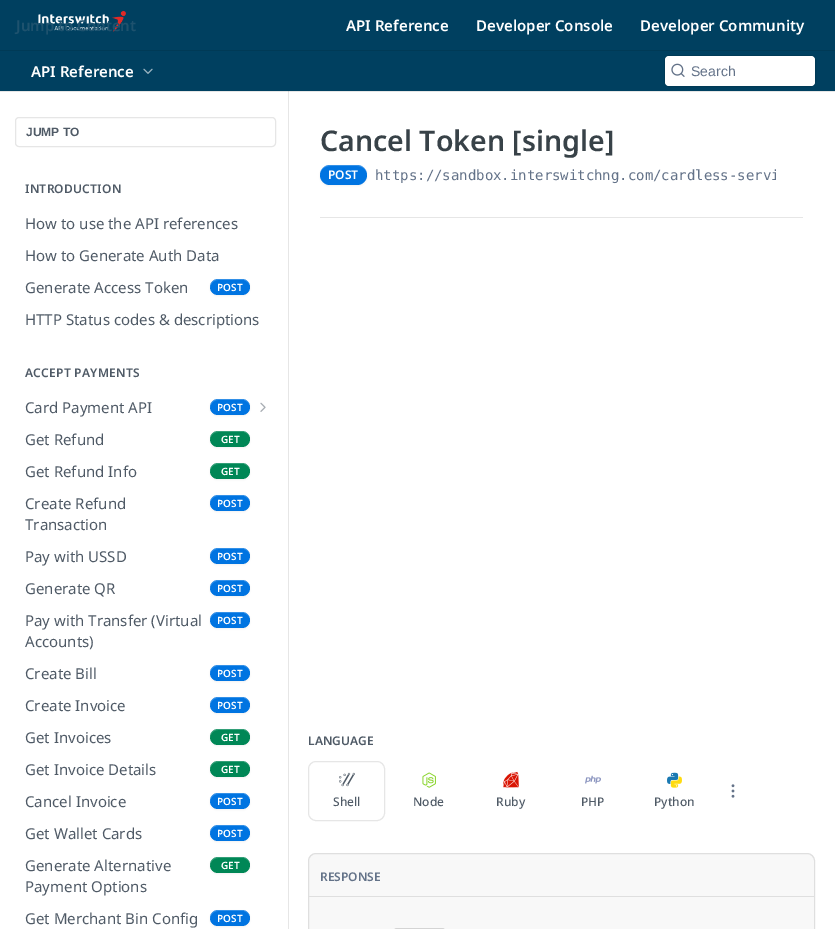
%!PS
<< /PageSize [835 929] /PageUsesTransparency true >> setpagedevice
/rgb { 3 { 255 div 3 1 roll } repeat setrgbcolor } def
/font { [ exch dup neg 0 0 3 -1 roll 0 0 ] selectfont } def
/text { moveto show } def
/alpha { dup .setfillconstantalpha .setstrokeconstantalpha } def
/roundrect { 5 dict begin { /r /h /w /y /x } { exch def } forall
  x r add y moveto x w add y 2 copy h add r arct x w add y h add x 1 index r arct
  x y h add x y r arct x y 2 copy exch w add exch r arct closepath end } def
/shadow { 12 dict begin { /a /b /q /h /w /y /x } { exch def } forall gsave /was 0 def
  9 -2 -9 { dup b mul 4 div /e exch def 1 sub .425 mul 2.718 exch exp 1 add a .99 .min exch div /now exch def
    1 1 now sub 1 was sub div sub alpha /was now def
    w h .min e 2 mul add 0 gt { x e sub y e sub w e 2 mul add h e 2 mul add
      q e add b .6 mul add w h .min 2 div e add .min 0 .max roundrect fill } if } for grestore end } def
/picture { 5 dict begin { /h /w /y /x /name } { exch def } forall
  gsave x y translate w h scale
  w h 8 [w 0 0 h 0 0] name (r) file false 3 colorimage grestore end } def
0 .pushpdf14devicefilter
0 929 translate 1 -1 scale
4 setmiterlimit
255 255 255 rgb
0 0 835 929 rectfill
230 230 230 rgb
0 91 835 1 rectfill
0 64 96 rgb
0 0 835 91 rectfill
0 58 86 rgb
0 50 835 1 rectfill
(img_01.rgb) 38 11 88 21 picture
(img_02.rgb) 143 68 10 6 picture
664.5 55.5 151 31 4.5 roundrect stroke
255 255 255 rgb
665 56 150 30 4 roundrect fill
(img_03.rgb) 671 63 14 14 picture
230 230 230 rgb
288 91 1 838 rectfill
207 207 207 rgb
288 91 1 1 rectfill
230 230 230 rgb
15.5 117.5 260 29 3.5 roundrect stroke
0 0 0 rgb
210 280 40 16 8 1 0.05 shadow
0 116 225 rgb
210 279 40 16 8 roundrect fill
0.2 alpha
255 255 255 rgb
218 280 moveto 26 0 rlineto 3 1 5 3 6 5.5 rcurveto -0.5 -3.5 -4 -6.5 -8 -6.5 rcurveto -24 0 rlineto -4.5 0 -8 3.5 -8 8 rcurveto 0 1.5 rlineto 0 -4 3 -8.5 8 -8.5 rcurveto closepath fill
1 alpha
0 0 0 rgb
210 400 40 16 8 1 0.05 shadow
0 116 225 rgb
210 399 40 16 8 roundrect fill
0.2 alpha
255 255 255 rgb
218 400 moveto 26 0 rlineto 3 1 5 3 6 5.5 rcurveto -0.5 -3.5 -4 -6.5 -8 -6.5 rcurveto -24 0 rlineto -4.5 0 -8 3.5 -8 8 rcurveto 0 1.5 rlineto 0 -4 3 -8.5 8 -8.5 rcurveto closepath fill
1 alpha
(img_04.rgb) 260 402 6 10 picture
0 0 0 rgb
210 432 40 16 8 1 0.05 shadow
0 135 86 rgb
210 431 40 16 8 roundrect fill
0.2 alpha
255 255 255 rgb
218 432 moveto 26 0 rlineto 3 1 5 3 6 5.5 rcurveto -0.5 -3.5 -4 -6.5 -8 -6.5 rcurveto -24 0 rlineto -4.5 0 -8 3.5 -8 8 rcurveto 0 1.5 rlineto 0 -4 3 -8.5 8 -8.5 rcurveto closepath fill
1 alpha
0 0 0 rgb
210 464 40 16 8 1 0.05 shadow
0 135 86 rgb
210 463 40 16 8 roundrect fill
0.2 alpha
255 255 255 rgb
218 464 moveto 26 0 rlineto 3 1 5 3 6 5.5 rcurveto -0.5 -3.5 -4 -6.5 -8 -6.5 rcurveto -24 0 rlineto -4.5 0 -8 3.5 -8 8 rcurveto 0 1.5 rlineto 0 -4 3 -8.5 8 -8.5 rcurveto closepath fill
1 alpha
0 0 0 rgb
210 496 40 16 8 1 0.05 shadow
0 116 225 rgb
210 495 40 16 8 roundrect fill
0.2 alpha
255 255 255 rgb
218 496 moveto 26 0 rlineto 3 1 5 3 6 5.5 rcurveto -0.5 -3.5 -4 -6.5 -8 -6.5 rcurveto -24 0 rlineto -4.5 0 -8 3.5 -8 8 rcurveto 0 1.5 rlineto 0 -4 3 -8.5 8 -8.5 rcurveto closepath fill
1 alpha
0 0 0 rgb
210 549 40 16 8 1 0.05 shadow
0 116 225 rgb
210 548 40 16 8 roundrect fill
0.2 alpha
255 255 255 rgb
218 549 moveto 26 0 rlineto 3 1 5 3 6 5.5 rcurveto -0.5 -3.5 -4 -6.5 -8 -6.5 rcurveto -24 0 rlineto -4.5 0 -8 3.5 -8 8 rcurveto 0 1.5 rlineto 0 -4 3 -8.5 8 -8.5 rcurveto closepath fill
1 alpha
0 0 0 rgb
210 581 40 16 8 1 0.05 shadow
0 116 225 rgb
210 580 40 16 8 roundrect fill
0.2 alpha
255 255 255 rgb
218 581 moveto 26 0 rlineto 3 1 5 3 6 5.5 rcurveto -0.5 -3.5 -4 -6.5 -8 -6.5 rcurveto -24 0 rlineto -4.5 0 -8 3.5 -8 8 rcurveto 0 1.5 rlineto 0 -4 3 -8.5 8 -8.5 rcurveto closepath fill
1 alpha
0 0 0 rgb
210 613 40 16 8 1 0.05 shadow
0 116 225 rgb
210 612 40 16 8 roundrect fill
0.2 alpha
255 255 255 rgb
218 613 moveto 26 0 rlineto 3 1 5 3 6 5.5 rcurveto -0.5 -3.5 -4 -6.5 -8 -6.5 rcurveto -24 0 rlineto -4.5 0 -8 3.5 -8 8 rcurveto 0 1.5 rlineto 0 -4 3 -8.5 8 -8.5 rcurveto closepath fill
1 alpha
0 0 0 rgb
210 666 40 16 8 1 0.05 shadow
0 116 225 rgb
210 665 40 16 8 roundrect fill
0.2 alpha
255 255 255 rgb
218 666 moveto 26 0 rlineto 3 1 5 3 6 5.5 rcurveto -0.5 -3.5 -4 -6.5 -8 -6.5 rcurveto -24 0 rlineto -4.5 0 -8 3.5 -8 8 rcurveto 0 1.5 rlineto 0 -4 3 -8.5 8 -8.5 rcurveto closepath fill
1 alpha
0 0 0 rgb
210 698 40 16 8 1 0.05 shadow
0 116 225 rgb
210 697 40 16 8 roundrect fill
0.2 alpha
255 255 255 rgb
218 698 moveto 26 0 rlineto 3 1 5 3 6 5.5 rcurveto -0.5 -3.5 -4 -6.5 -8 -6.5 rcurveto -24 0 rlineto -4.5 0 -8 3.5 -8 8 rcurveto 0 1.5 rlineto 0 -4 3 -8.5 8 -8.5 rcurveto closepath fill
1 alpha
0 0 0 rgb
210 730 40 16 8 1 0.05 shadow
0 135 86 rgb
210 729 40 16 8 roundrect fill
0.2 alpha
255 255 255 rgb
218 730 moveto 26 0 rlineto 3 1 5 3 6 5.5 rcurveto -0.5 -3.5 -4 -6.5 -8 -6.5 rcurveto -24 0 rlineto -4.5 0 -8 3.5 -8 8 rcurveto 0 1.5 rlineto 0 -4 3 -8.5 8 -8.5 rcurveto closepath fill
1 alpha
0 0 0 rgb
210 762 40 16 8 1 0.05 shadow
0 135 86 rgb
210 761 40 16 8 roundrect fill
0.2 alpha
255 255 255 rgb
218 762 moveto 26 0 rlineto 3 1 5 3 6 5.5 rcurveto -0.5 -3.5 -4 -6.5 -8 -6.5 rcurveto -24 0 rlineto -4.5 0 -8 3.5 -8 8 rcurveto 0 1.5 rlineto 0 -4 3 -8.5 8 -8.5 rcurveto closepath fill
1 alpha
0 0 0 rgb
210 794 40 16 8 1 0.05 shadow
0 116 225 rgb
210 793 40 16 8 roundrect fill
0.2 alpha
255 255 255 rgb
218 794 moveto 26 0 rlineto 3 1 5 3 6 5.5 rcurveto -0.5 -3.5 -4 -6.5 -8 -6.5 rcurveto -24 0 rlineto -4.5 0 -8 3.5 -8 8 rcurveto 0 1.5 rlineto 0 -4 3 -8.5 8 -8.5 rcurveto closepath fill
1 alpha
0 0 0 rgb
210 826 40 16 8 1 0.05 shadow
0 116 225 rgb
210 825 40 16 8 roundrect fill
0.2 alpha
255 255 255 rgb
218 826 moveto 26 0 rlineto 3 1 5 3 6 5.5 rcurveto -0.5 -3.5 -4 -6.5 -8 -6.5 rcurveto -24 0 rlineto -4.5 0 -8 3.5 -8 8 rcurveto 0 1.5 rlineto 0 -4 3 -8.5 8 -8.5 rcurveto closepath fill
1 alpha
0 0 0 rgb
210 858 40 16 8 1 0.05 shadow
0 135 86 rgb
210 857 40 16 8 roundrect fill
0.2 alpha
255 255 255 rgb
218 858 moveto 26 0 rlineto 3 1 5 3 6 5.5 rcurveto -0.5 -3.5 -4 -6.5 -8 -6.5 rcurveto -24 0 rlineto -4.5 0 -8 3.5 -8 8 rcurveto 0 1.5 rlineto 0 -4 3 -8.5 8 -8.5 rcurveto closepath fill
1 alpha
0 0 0 rgb
210 911 40 16 8 1 0.05 shadow
0 116 225 rgb
210 910 40 16 8 roundrect fill
0.2 alpha
255 255 255 rgb
218 911 moveto 26 0 rlineto 3 1 5 3 6 5.5 rcurveto -0.5 -3.5 -4 -6.5 -8 -6.5 rcurveto -24 0 rlineto -4.5 0 -8 3.5 -8 8 rcurveto 0 1.5 rlineto 0 -4 3 -8.5 8 -8.5 rcurveto closepath fill
1 alpha
230 230 230 rgb
320 217 483 1 rectfill
0 0 0 rgb
320 166 47 20 10 1 0.05 shadow
0 116 225 rgb
320 165 47 20 10 roundrect fill
0.2 alpha
255 255 255 rgb
330 166 moveto 27 0 rlineto 6 0 10 4 10 9 rcurveto 1 -13 -15 -10 -23 -10 rcurveto -9 0 -25 -3 -24 10 rcurveto 0 -5 4 -9 10 -9 rcurveto closepath fill
1 alpha
(img_05.rgb) 731 784 4 14 picture
230 230 230 rgb
308.5 761.5 76 59 7.5 roundrect stroke
(img_06.rgb) 339 772 16 15 picture
(img_07.rgb) 422 772 14 16 picture
(img_08.rgb) 503 771 16 17 picture
(img_09.rgb) 585 775 16 9 picture
(img_10.rgb) 667 772 12 12 picture
(img_11.rgb) 670 776 12 12 picture
248 248 248 rgb
316 853 moveto 491 0 rlineto 4.5 0 8 3.5 8 8 rcurveto 0 68 rlineto -507 0 rlineto 0 -68 rlineto 0 -4.5 3.5 -8 8 -8 rcurveto closepath fill
0.1 alpha
0 0 0 rgb
308.5 853.5 506 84 7.5 roundrect stroke
1 alpha
223 223 223 rgb
309 896 505 1 rectfill
236 236 236 rgb
397 928 moveto 45 0 rlineto 2 0 4 2 4 4 rcurveto 0 -3 rlineto -53 0 rlineto 0 3 rlineto 0 -2 2 -4 4 -4 rcurveto closepath fill
0.1 alpha
0 0 0 rgb
393.5 928.5 52 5 3.5 roundrect stroke
/NotoSans-SemiBold 15 font
1 alpha
255 255 255 rgb
(API Reference) 346 31 text
(Developer Console) 476 31 text
(Developer Community) 640 31 text
30 82 110 rgb
(Jump to Content) 16 31 text
255 255 255 rgb
(API Reference) 31 77 text
/LiberationSans-Regular 14 font
99 114 136 rgb
(Search) 691 76 text
/LiberationSans-Bold 12 font
79 90 102 rgb
(JUMP TO) 26 136 text
/NotoSans-SemiBold 12 font
25 193 moveto 0.25 0 (INTRODUCTION) ashow
/NotoSans-Regular 15 font
(How to use the API references) 25 229 text
(How to Generate Auth Data) 25 261 text
(Generate Access Token) 25 293 text
/NotoSans-SemiBold 10 font
255 255 255 rgb
(POST) 217 291 text
/NotoSans-Regular 15 font
79 90 102 rgb
(HTTP Status codes & descriptions) 25 325 text
/NotoSans-SemiBold 12 font
25 377 moveto 0.25 0 (ACCEPT PAYMENTS) ashow
/NotoSans-Regular 15 font
(Card Payment API) 25 413 text
/NotoSans-SemiBold 10 font
255 255 255 rgb
(POST) 217 411 text
/NotoSans-Regular 15 font
79 90 102 rgb
(Get Refund) 25 445 text
/NotoSans-SemiBold 10 font
255 255 255 rgb
(GET) 221 443 text
/NotoSans-Regular 15 font
79 90 102 rgb
(Get Refund Info) 25 477 text
/NotoSans-SemiBold 10 font
255 255 255 rgb
(GET) 221 475 text
/NotoSans-Regular 15 font
79 90 102 rgb
(Create Refund) 25 509 text
(Transaction) 25 530 text
/NotoSans-SemiBold 10 font
255 255 255 rgb
(POST) 217 507 text
/NotoSans-Regular 15 font
79 90 102 rgb
(Pay with USSD) 25 562 text
/NotoSans-SemiBold 10 font
255 255 255 rgb
(POST) 217 560 text
/NotoSans-Regular 15 font
79 90 102 rgb
(Generate QR) 25 594 text
/NotoSans-SemiBold 10 font
255 255 255 rgb
(POST) 217 592 text
/NotoSans-Regular 15 font
79 90 102 rgb
(Pay with Transfer \(Virtual) 25 626 text
(Accounts\)) 25 647 text
/NotoSans-SemiBold 10 font
255 255 255 rgb
(POST) 217 624 text
/NotoSans-Regular 15 font
79 90 102 rgb
(Create Bill) 25 679 text
/NotoSans-SemiBold 10 font
255 255 255 rgb
(POST) 217 677 text
/NotoSans-Regular 15 font
79 90 102 rgb
(Create Invoice) 25 711 text
/NotoSans-SemiBold 10 font
255 255 255 rgb
(POST) 217 709 text
/NotoSans-Regular 15 font
79 90 102 rgb
(Get Invoices) 25 743 text
/NotoSans-SemiBold 10 font
255 255 255 rgb
(GET) 221 741 text
/NotoSans-Regular 15 font
79 90 102 rgb
(Get Invoice Details) 25 775 text
/NotoSans-SemiBold 10 font
255 255 255 rgb
(GET) 221 773 text
/NotoSans-Regular 15 font
79 90 102 rgb
(Cancel Invoice) 25 807 text
/NotoSans-SemiBold 10 font
255 255 255 rgb
(POST) 217 805 text
/NotoSans-Regular 15 font
79 90 102 rgb
(Get Wallet Cards) 25 839 text
/NotoSans-SemiBold 10 font
255 255 255 rgb
(POST) 217 837 text
/NotoSans-Regular 15 font
79 90 102 rgb
(Generate Alternative) 25 871 text
(Payment Options) 25 892 text
/NotoSans-SemiBold 10 font
255 255 255 rgb
(GET) 221 869 text
/NotoSans-Regular 15 font
79 90 102 rgb
(Get Merchant Bin Config) 25 924 text
/NotoSans-SemiBold 10 font
255 255 255 rgb
(POST) 217 922 text
/NotoSans-SemiBold 28.5 font
56 66 72 rgb
(Cancel Token [single]) 320 151 text
/NotoSans-SemiBold 12 font
255 255 255 rgb
(POST) 328 179 text
/DejaVuSansMono-Regular 14 font
99 114 136 rgb
(https://sandbox.interswitchng.com) 375 180 text
gsave
375 165 401 20 rectclip
(/cardless-servi) 653 180 text
grestore
/NotoSans-SemiBold 12 font
79 90 102 rgb
(LANGUAGE) 308 745 text
/NotoSans-Medium 12 font
(Shell) 333 806 text
(Node) 413 806 text
(Ruby) 496 806 text
(PHP) 581 806 text
(Python) 654 806 text
/NotoSans-SemiBold 12 font
99 114 136 rgb
(RESPONSE) 320 881 text
.poppdf14devicefilter showpage
